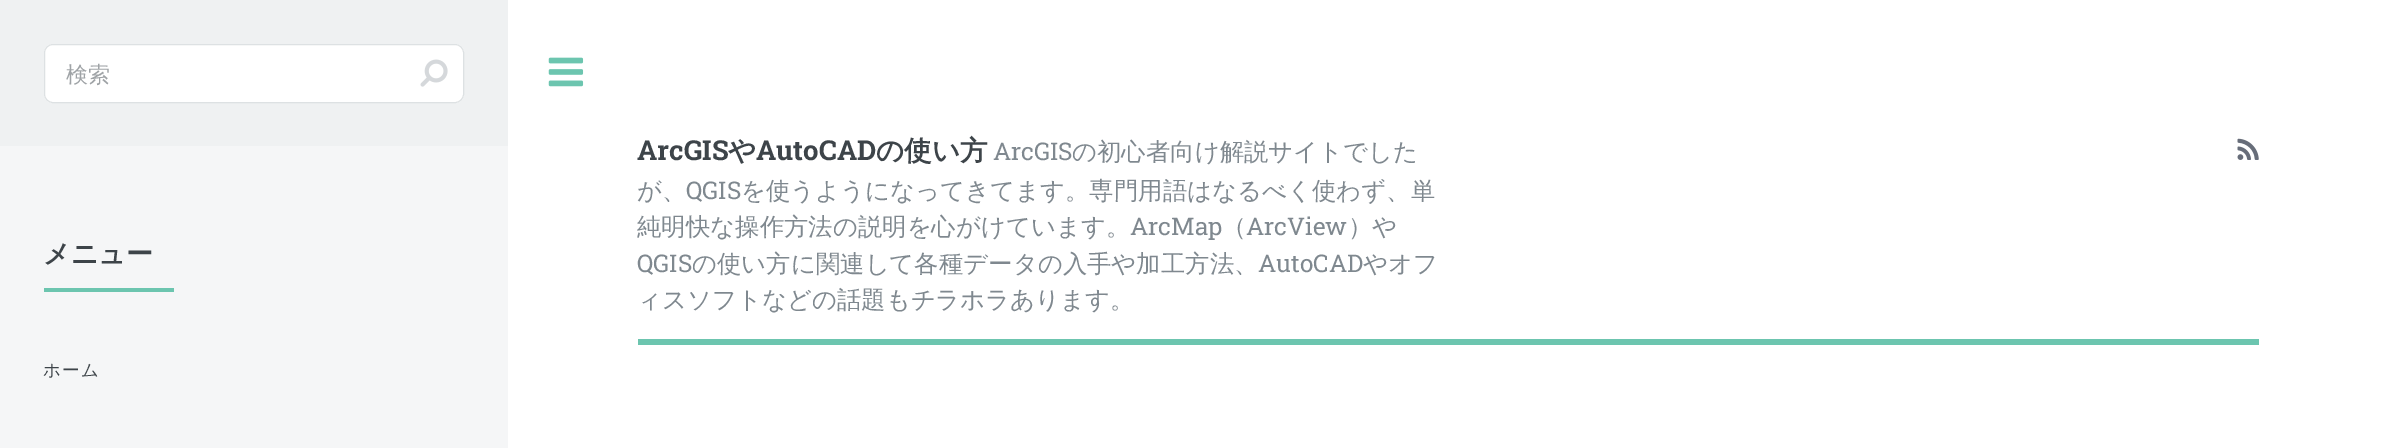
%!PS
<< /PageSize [2388 448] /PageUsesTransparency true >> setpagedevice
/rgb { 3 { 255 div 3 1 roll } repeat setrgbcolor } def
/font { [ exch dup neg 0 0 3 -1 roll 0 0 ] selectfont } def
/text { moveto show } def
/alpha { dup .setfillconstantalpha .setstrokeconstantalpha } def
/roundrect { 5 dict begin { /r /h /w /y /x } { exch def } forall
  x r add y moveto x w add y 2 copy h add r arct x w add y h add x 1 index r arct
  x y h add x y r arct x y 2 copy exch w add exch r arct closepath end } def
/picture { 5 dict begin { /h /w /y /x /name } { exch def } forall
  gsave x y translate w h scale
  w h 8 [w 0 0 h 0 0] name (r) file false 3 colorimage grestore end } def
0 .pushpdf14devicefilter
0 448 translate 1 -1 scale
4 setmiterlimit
255 255 255 rgb
0 0 2388 448 rectfill
245 246 247 rgb
0 146 508 302 rectfill
239 241 242 rgb
0 0 508 146 rectfill
255 255 255 rgb
44 44 420 59 9 roundrect fill
0.75 alpha
210 215 217 rgb
44.5 44.5 419 58 8.5 roundrect stroke
1 alpha
(img_01.rgb) 420 59 28 28 picture
108 197 175 rgb
44 288 130 4 rectfill
(img_02.rgb) 548 57 36 30 picture
638 339 1621 6 rectfill
(img_03.rgb) 2237 138 22 22 picture
/WenQuanYiZenHei-Medium 22 font
159 163 166 rgb
(検索) 66 82 text
/WenQuanYiZenHei-Bold 27 font
61 68 73 rgb
(メニュー) 43 263 text
/WenQuanYiZenHei-Medium 17.5 font
43 376 moveto 1.5 0 (ホーム) ashow
/RobotoSlab-Bold 27.5 font
(ArcGIS) 637 160 text
/WenQuanYiZenHei-Bold 27.5 font
(や) 728 160 text
/RobotoSlab-Bold 27.5 font
(AutoCAD) 756 160 text
/WenQuanYiZenHei-Bold 27.5 font
(の使い方) 876 160 text
/RobotoSlab-Regular 24.4 font
127 136 143 rgb
(ArcGIS) 993 160 text
/WenQuanYiZenHei-Medium 24.4 font
(の初心者向け解説サイトでした) 1072 160 text
(が、) 637 199 text
/RobotoSlab-Regular 24.4 font
(QGIS) 686 199 text
/WenQuanYiZenHei-Medium 24.4 font
(を使うようになってきてます。専門用語はなるべく使わず、単) 741 199 text
(純明快な操作方法の説明を心がけています。) 637 235 text
/RobotoSlab-Regular 24.4 font
(ArcMap) 1130 235 text
/WenQuanYiZenHei-Medium 24.4 font
(（) 1222 235 text
/RobotoSlab-Regular 24.4 font
(ArcView) 1246 235 text
/WenQuanYiZenHei-Medium 24.4 font
(）や) 1348 235 text
/RobotoSlab-Regular 24.4 font
(QGIS) 637 272 text
/WenQuanYiZenHei-Medium 24.4 font
(の使い方に関連して各種データの入手や加工方法、) 692 272 text
/RobotoSlab-Regular 24.4 font
(AutoCAD) 1258 272 text
/WenQuanYiZenHei-Medium 24.4 font
(やオフ) 1363 272 text
(ィスソフトなどの話題もチラホラあります。) 637 308 text
.poppdf14devicefilter showpage
